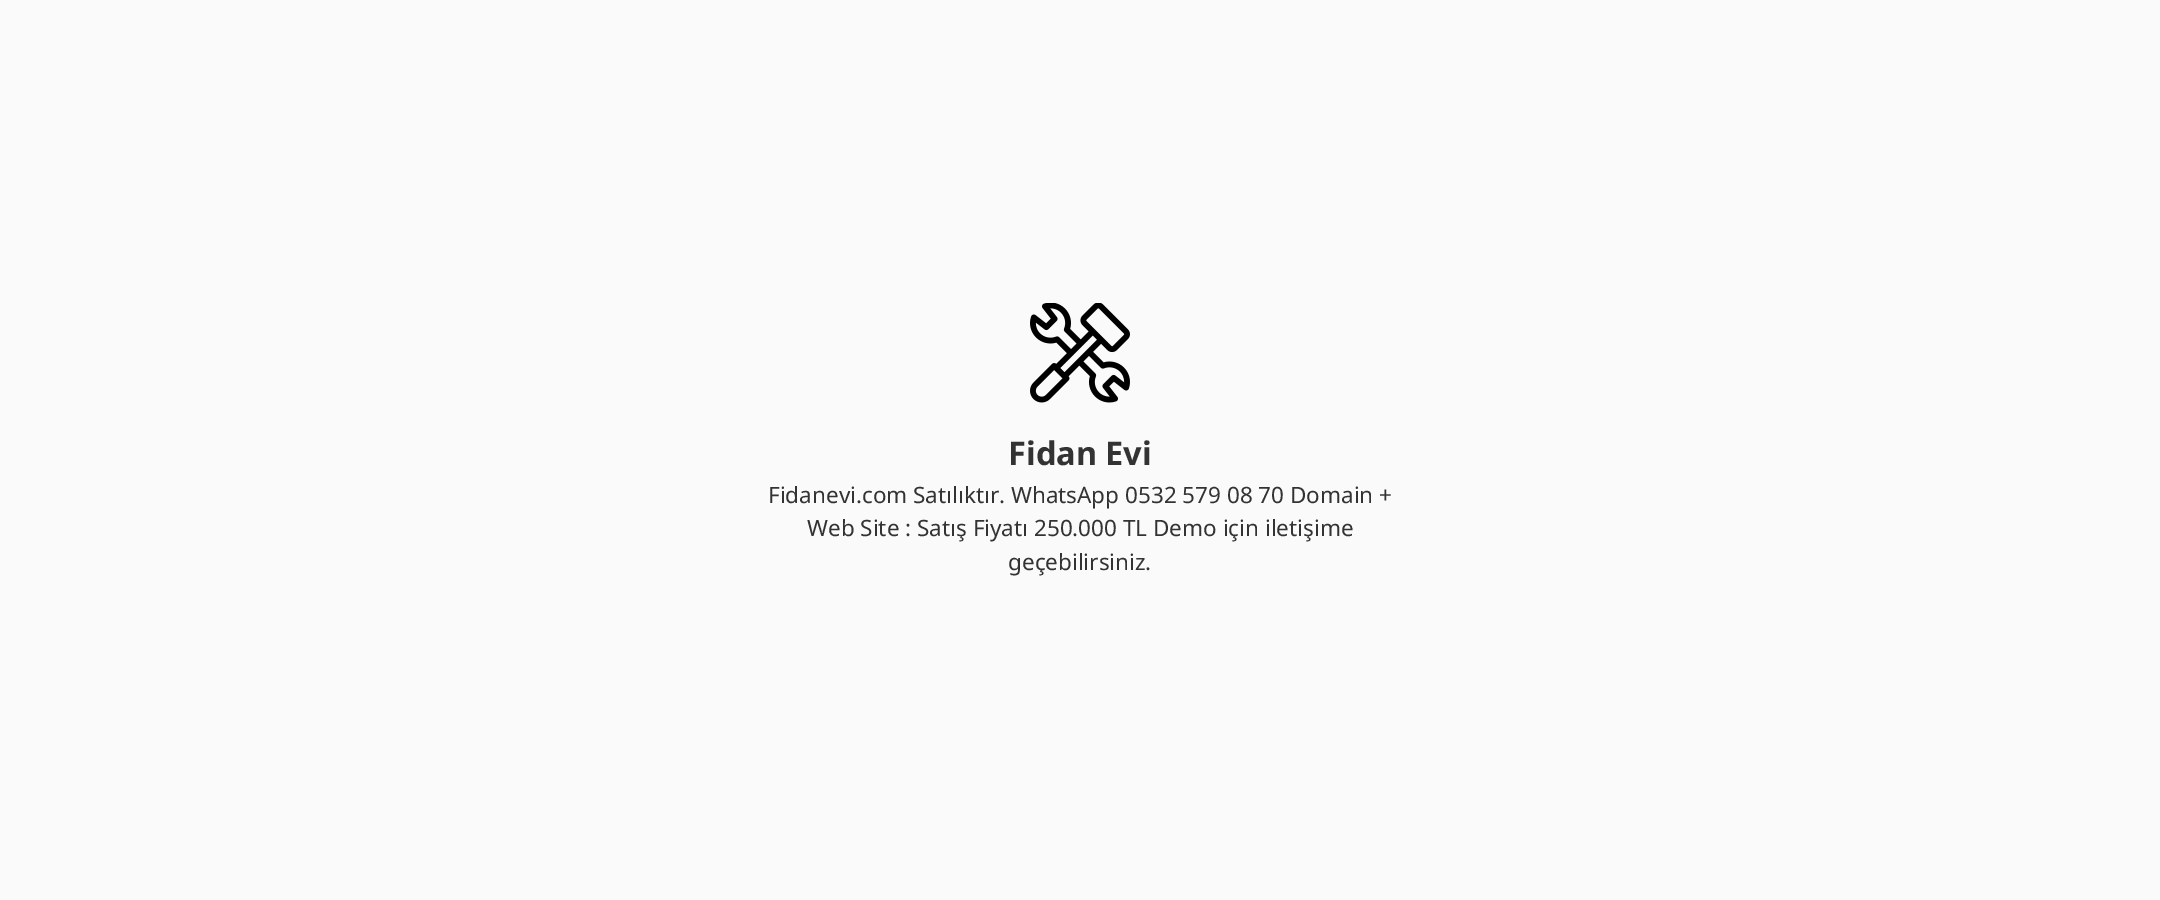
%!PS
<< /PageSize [2160 900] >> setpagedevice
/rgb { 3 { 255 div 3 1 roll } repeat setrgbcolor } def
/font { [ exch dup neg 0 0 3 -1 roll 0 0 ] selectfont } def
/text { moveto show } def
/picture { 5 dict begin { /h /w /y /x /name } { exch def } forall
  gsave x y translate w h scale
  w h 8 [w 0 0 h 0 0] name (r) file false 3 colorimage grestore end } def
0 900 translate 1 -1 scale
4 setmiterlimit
250 250 250 rgb
0 0 2160 900 rectfill
(img_01.rgb) 1030 303 100 100 picture
/NotoSans-Bold 32.5 font
51 51 51 rgb
(Fidan Evi) 1008 465 text
/NotoSans-Regular 22.5 font
(Fidanevi.com Satılıktır. WhatsApp 0532 579 08 70 Domain +) 768 503 text
(Web Site : Satış Fiyatı 250.000 TL Demo için iletişime) 807 536 text
(geçebilirsiniz.) 1008 570 text
showpage
